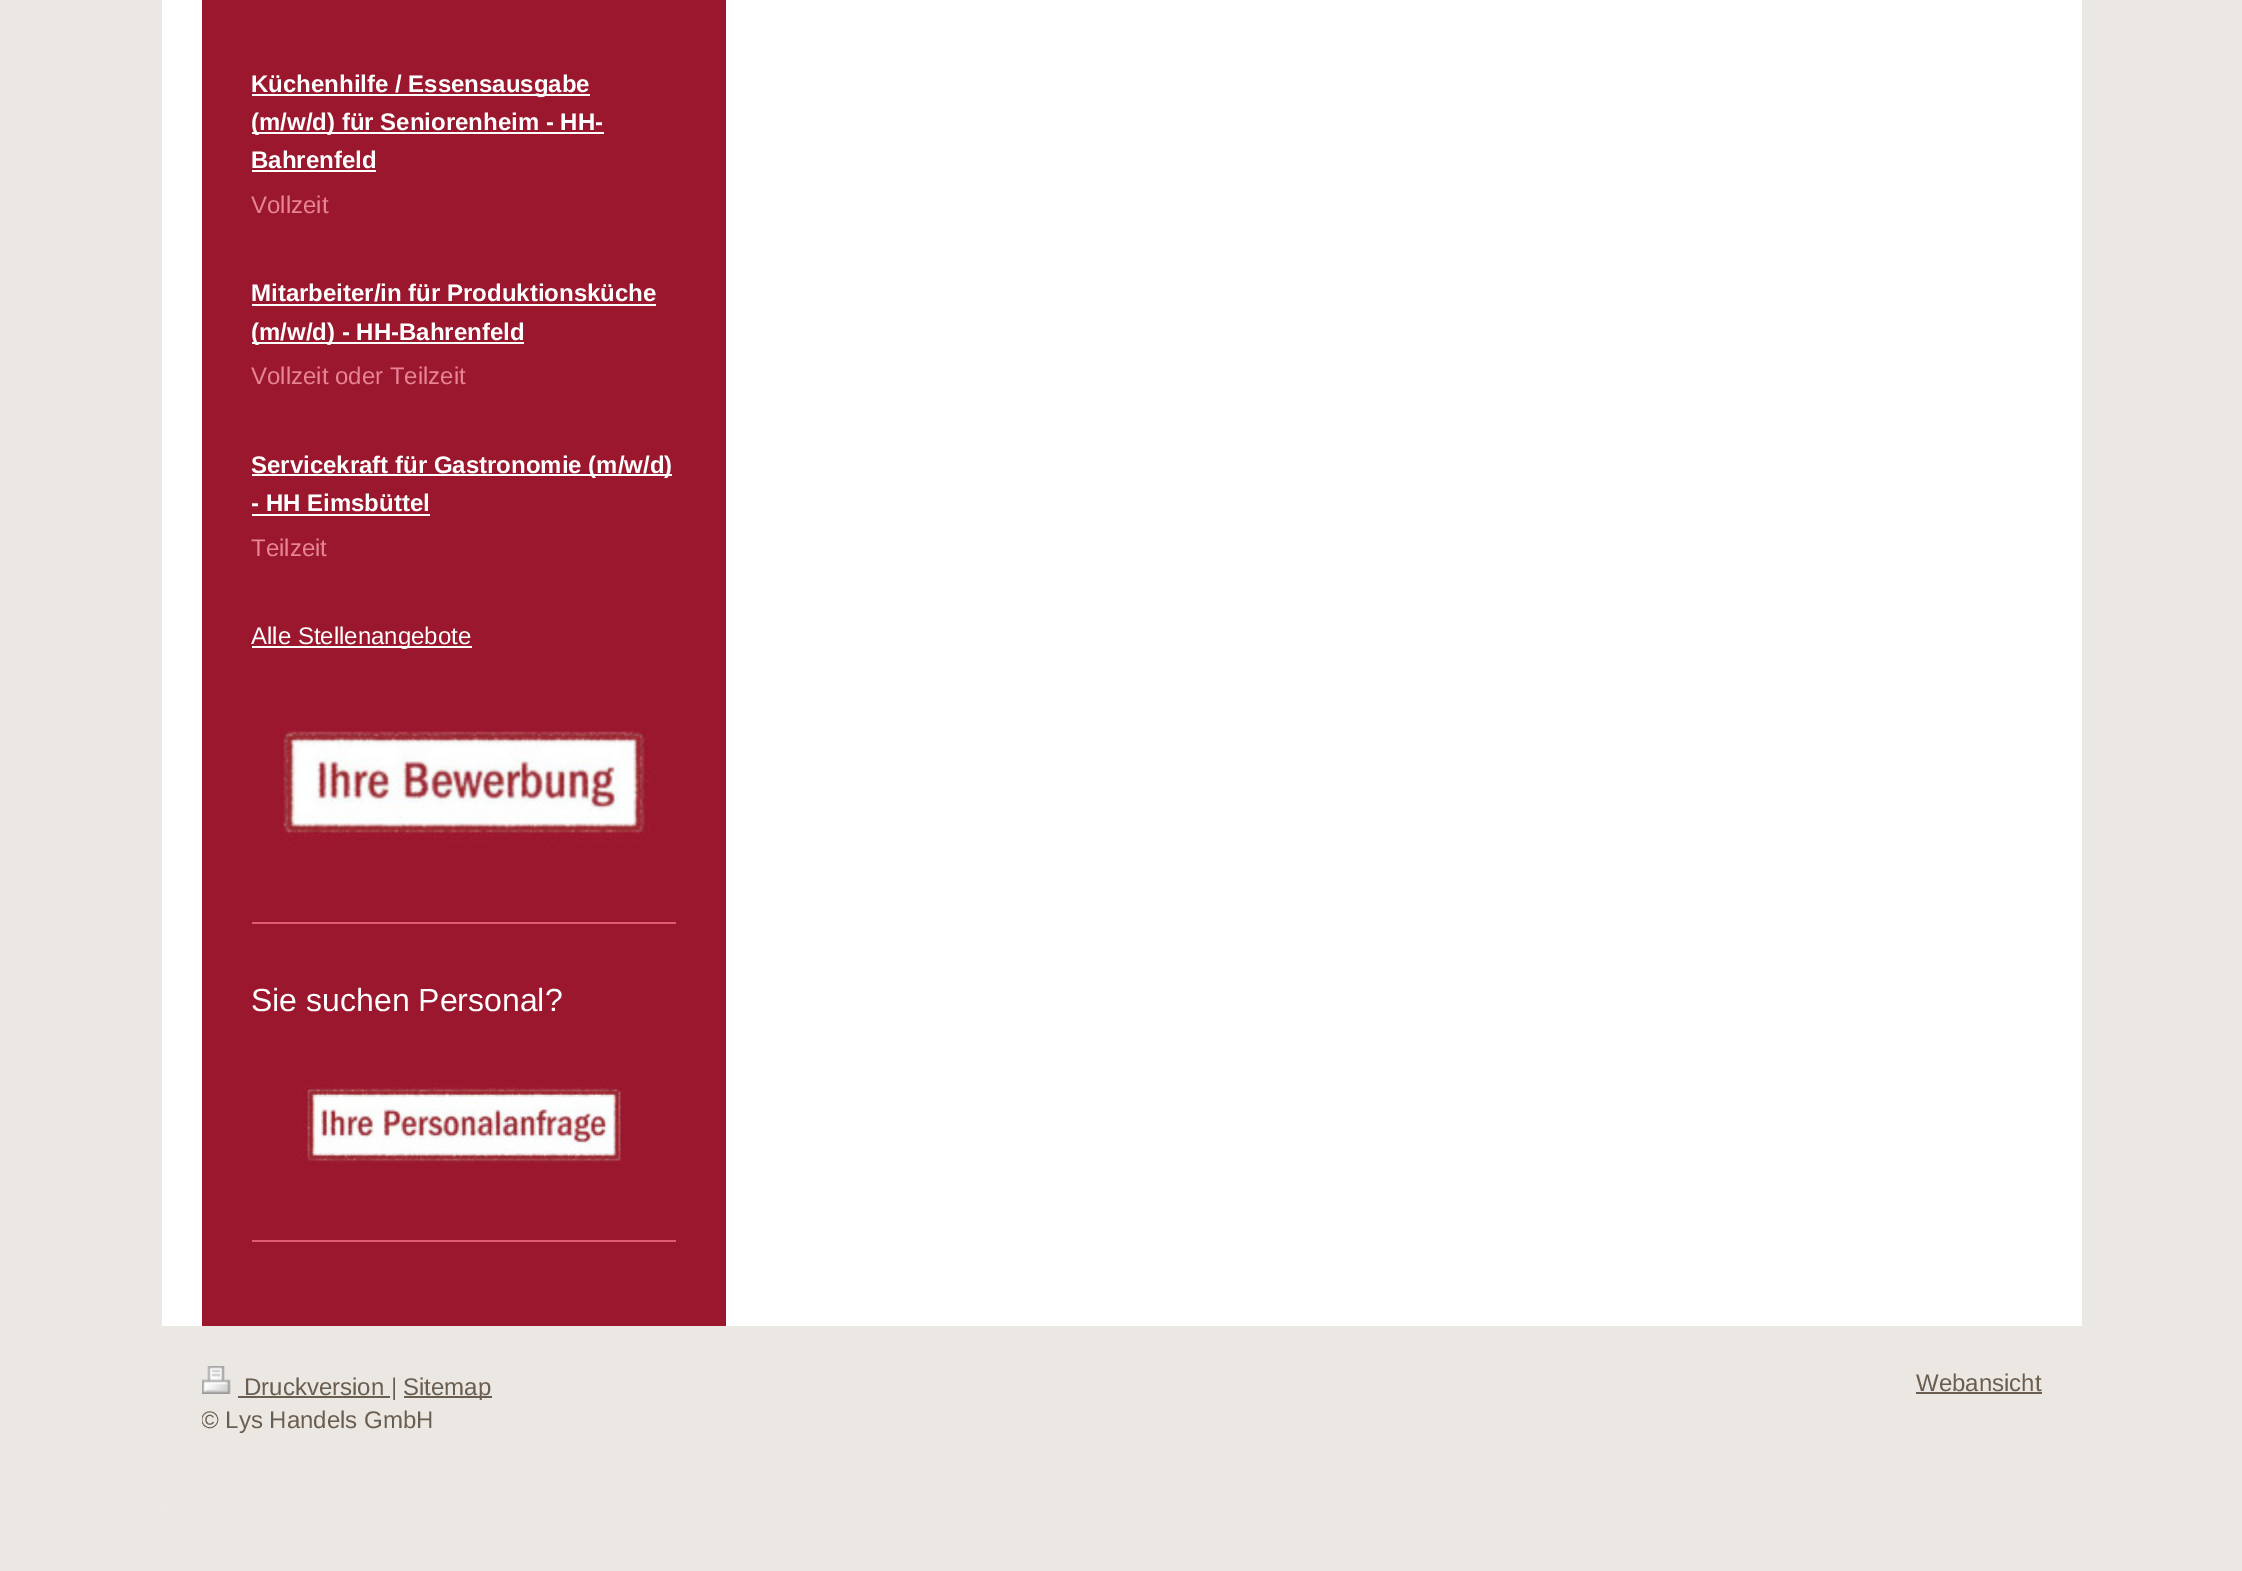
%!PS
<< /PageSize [2242 1571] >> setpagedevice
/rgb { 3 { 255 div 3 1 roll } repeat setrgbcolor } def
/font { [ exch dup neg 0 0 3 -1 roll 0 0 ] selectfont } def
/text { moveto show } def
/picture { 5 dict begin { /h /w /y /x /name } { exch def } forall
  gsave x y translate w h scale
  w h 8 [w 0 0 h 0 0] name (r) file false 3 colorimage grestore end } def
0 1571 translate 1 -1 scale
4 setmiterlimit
235 231 226 rgb
0 0 2242 1571 rectfill
255 255 255 rgb
162 -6 moveto 1920 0 rlineto 0 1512 rlineto 0 3.5 -2.5 6 -6 6 rcurveto -1908 0 rlineto -3.5 0 -6 -2.5 -6 -6 rcurveto closepath fill
155 23 45 rgb
202 0 524 1326 rectfill
255 255 255 rgb
252 94 338 2 rectfill
252 132 352 2 rectfill
252 170 124 2 rectfill
252 304 404 2 rectfill
252 342 272 2 rectfill
252 474 420 2 rectfill
252 514 178 2 rectfill
252 646 220 2 rectfill
(img_01.rgb) 283 731 368 113 picture
224 92 114 rgb
252 922 424 2 rectfill
(img_02.rgb) 298 1081 325 82 picture
252 1240 424 2 rectfill
235 231 226 rgb
162 1326 moveto 1920 0 rlineto 0 180 rlineto 0 3.5 -2.5 6 -6 6 rcurveto -1908 0 rlineto -3.5 0 -6 -2.5 -6 -6 rcurveto closepath fill
(img_03.rgb) 202 1366 29 28 picture
106 94 80 rgb
238 1396 152 2 rectfill
404 1396 88 2 rectfill
1916 1392 126 2 rectfill
/LiberationSans-Bold 24 font
255 255 255 rgb
(Küchenhilfe / Essensausgabe) 251 92 text
(\(m/w/d\) für Seniorenheim - HH-) 251 130 text
(Bahrenfeld) 251 168 text
/LiberationSans-Regular 24 font
230 131 148 rgb
(Vollzeit) 251 213 text
/LiberationSans-Bold 24 font
255 255 255 rgb
(Mitarbeiter/in für Produktionsküche) 251 301 text
(\(m/w/d\) - HH-Bahrenfeld) 251 340 text
/LiberationSans-Regular 24 font
230 131 148 rgb
(Vollzeit oder Teilzeit) 251 384 text
/LiberationSans-Bold 24 font
255 255 255 rgb
(Servicekraft für Gastronomie \(m/w/d\)) 251 473 text
(- HH Eimsbüttel) 251 511 text
/LiberationSans-Regular 24 font
230 131 148 rgb
(Teilzeit) 251 556 text
255 255 255 rgb
(Alle Stellenangebote) 251 644 text
/LiberationSans-Regular 32 font
(Sie suchen Personal?) 251 1011 text
/LiberationSans-Regular 24 font
106 94 80 rgb
(Druckversion |) 244 1395 text
(Sitemap) 403 1395 text
gsave
202 1366 1840 106 rectclip
(© Lys Handels GmbH) 201 1428 text
grestore
(Webansicht) 1916 1391 text
showpage
